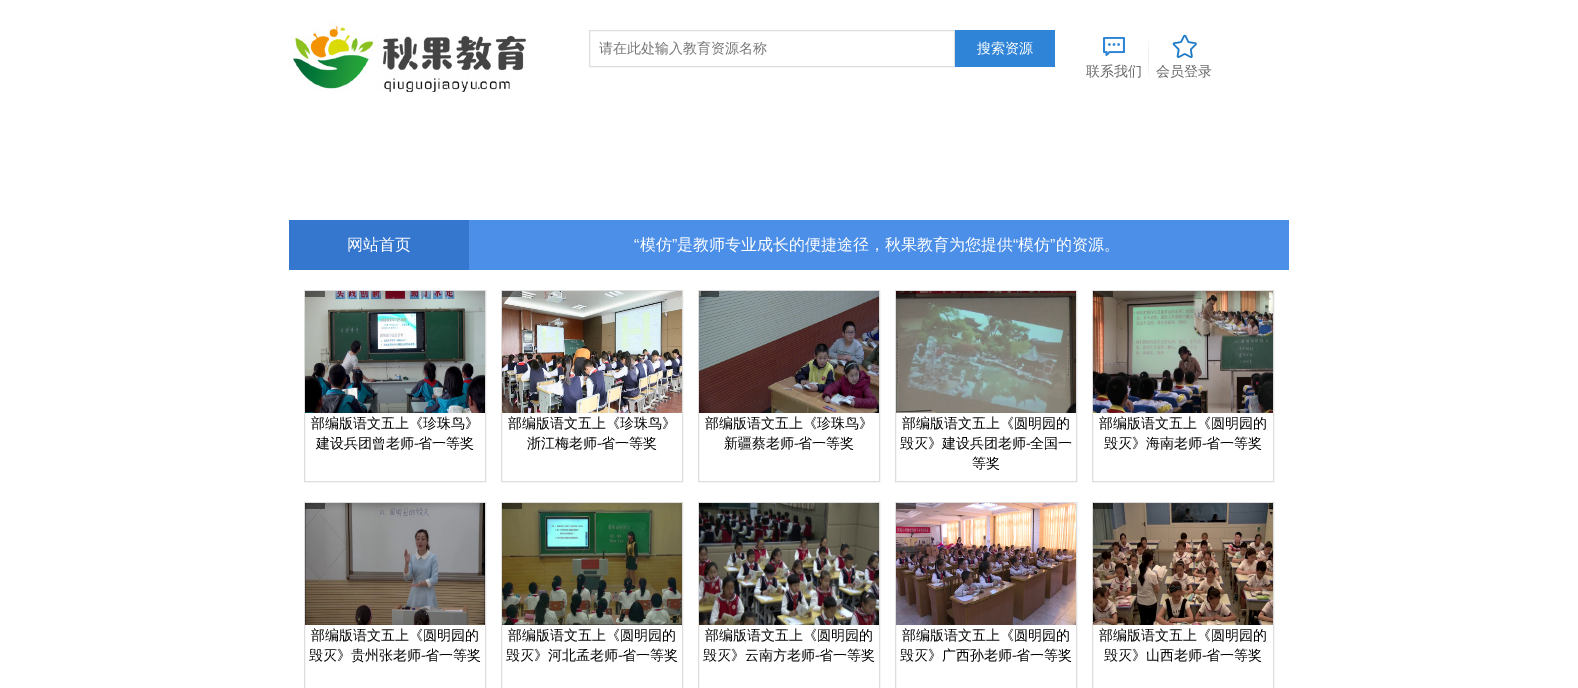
%!PS
<< /PageSize [1578 688] /PageUsesTransparency true >> setpagedevice
/rgb { 3 { 255 div 3 1 roll } repeat setrgbcolor } def
/font { [ exch dup neg 0 0 3 -1 roll 0 0 ] selectfont } def
/text { moveto show } def
/alpha { dup .setfillconstantalpha .setstrokeconstantalpha } def
/picture { 5 dict begin { /h /w /y /x /name } { exch def } forall
  gsave x y translate w h scale
  w h 8 [w 0 0 h 0 0] name (r) file false 3 colorimage grestore end } def
0 .pushpdf14devicefilter
0 688 translate 1 -1 scale
4 setmiterlimit
255 255 255 rgb
0 0 1578 688 rectfill
(img_01.rgb) 289 20 239 72 picture
223 223 223 rgb
589.5 30.5 365 36 rectstroke
47 132 215 rgb
955 30 100 37 rectfill
(img_02.rgb) 1148 38 1 40 picture
(img_03.rgb) 1103 37 22 19 picture
(img_04.rgb) 1172 34 25 24 picture
76 143 232 rgb
469 220 820 50 rectfill
53 119 206 rgb
289 220 180 50 rectfill
221 221 221 rgb
304.5 290.5 181 191 rectstroke
(img_05.rgb) 305 291 180 122 picture
0.5 alpha
0 0 0 rgb
305 291 20 6 rectfill
1 alpha
221 221 221 rgb
501.5 290.5 181 191 rectstroke
(img_06.rgb) 502 291 180 122 picture
0.5 alpha
0 0 0 rgb
502 291 20 6 rectfill
1 alpha
221 221 221 rgb
698.5 290.5 181 191 rectstroke
(img_07.rgb) 699 291 180 122 picture
0.5 alpha
0 0 0 rgb
699 291 20 6 rectfill
1 alpha
221 221 221 rgb
895.5 290.5 181 191 rectstroke
(img_08.rgb) 896 291 180 122 picture
0.5 alpha
0 0 0 rgb
896 291 20 6 rectfill
1 alpha
221 221 221 rgb
1092.5 290.5 181 191 rectstroke
(img_09.rgb) 1093 291 180 122 picture
0.5 alpha
0 0 0 rgb
1093 291 20 6 rectfill
1 alpha
221 221 221 rgb
304.5 502.5 181 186 rectstroke
(img_10.rgb) 305 503 180 122 picture
0.5 alpha
0 0 0 rgb
305 503 20 6 rectfill
1 alpha
221 221 221 rgb
501.5 502.5 181 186 rectstroke
(img_11.rgb) 502 503 180 122 picture
0.5 alpha
0 0 0 rgb
502 503 20 6 rectfill
1 alpha
221 221 221 rgb
698.5 502.5 181 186 rectstroke
(img_12.rgb) 699 503 180 122 picture
0.5 alpha
0 0 0 rgb
699 503 20 6 rectfill
1 alpha
221 221 221 rgb
895.5 502.5 181 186 rectstroke
(img_13.rgb) 896 503 180 122 picture
0.5 alpha
0 0 0 rgb
896 503 20 6 rectfill
1 alpha
221 221 221 rgb
1092.5 502.5 181 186 rectstroke
(img_14.rgb) 1093 503 180 122 picture
0.5 alpha
0 0 0 rgb
1093 503 20 6 rectfill
/WenQuanYiZenHei-Medium 14 font
1 alpha
117 117 117 rgb
(请在此处输入教育资源名称) 599 53 text
255 255 255 rgb
(搜索资源) 977 53 text
102 102 102 rgb
(联系我们) 1086 76 text
(会员登录) 1156 76 text
/WenQuanYiZenHei-Medium 16 font
255 255 255 rgb
(网站首页) 347 250 text
/LiberationSans-Regular 16 font
(“) 634 250 text
/WenQuanYiZenHei-Medium 16 font
(模仿) 640 250 text
/LiberationSans-Regular 16 font
(”) 672 250 text
/WenQuanYiZenHei-Medium 16 font
(是教师专业成长的便捷途径，秋果教育为您提供) 677 250 text
/LiberationSans-Regular 16 font
(“) 1013 250 text
/WenQuanYiZenHei-Medium 16 font
(模仿) 1018 250 text
/LiberationSans-Regular 16 font
(”) 1050 250 text
/WenQuanYiZenHei-Medium 16 font
(的资源。) 1056 250 text
/WenQuanYiZenHei-Medium 14 font
0 0 0 rgb
(部编版语文五上《珍珠鸟》) 311 428 text
(建设兵团曾老师) 316 448 text
/LiberationSans-Regular 14 font
(-) 414 448 text
/WenQuanYiZenHei-Medium 14 font
(省一等奖) 418 448 text
(部编版语文五上《珍珠鸟》) 508 428 text
(浙江梅老师) 527 448 text
/LiberationSans-Regular 14 font
(-) 597 448 text
/WenQuanYiZenHei-Medium 14 font
(省一等奖) 601 448 text
(部编版语文五上《珍珠鸟》) 705 428 text
(新疆蔡老师) 724 448 text
/LiberationSans-Regular 14 font
(-) 794 448 text
/WenQuanYiZenHei-Medium 14 font
(省一等奖) 798 448 text
(部编版语文五上《圆明园的) 902 428 text
(毁灭》建设兵团老师) 900 448 text
/LiberationSans-Regular 14 font
(-) 1026 448 text
/WenQuanYiZenHei-Medium 14 font
(全国一) 1030 448 text
(等奖) 972 468 text
(部编版语文五上《圆明园的) 1099 428 text
(毁灭》海南老师) 1104 448 text
/LiberationSans-Regular 14 font
(-) 1202 448 text
/WenQuanYiZenHei-Medium 14 font
(省一等奖) 1206 448 text
(部编版语文五上《圆明园的) 311 640 text
(毁灭》贵州张老师) 309 660 text
/LiberationSans-Regular 14 font
(-) 421 660 text
/WenQuanYiZenHei-Medium 14 font
(省一等奖) 425 660 text
(部编版语文五上《圆明园的) 508 640 text
(毁灭》河北孟老师) 506 660 text
/LiberationSans-Regular 14 font
(-) 618 660 text
/WenQuanYiZenHei-Medium 14 font
(省一等奖) 622 660 text
(部编版语文五上《圆明园的) 705 640 text
(毁灭》云南方老师) 703 660 text
/LiberationSans-Regular 14 font
(-) 815 660 text
/WenQuanYiZenHei-Medium 14 font
(省一等奖) 819 660 text
(部编版语文五上《圆明园的) 902 640 text
(毁灭》广西孙老师) 900 660 text
/LiberationSans-Regular 14 font
(-) 1012 660 text
/WenQuanYiZenHei-Medium 14 font
(省一等奖) 1016 660 text
(部编版语文五上《圆明园的) 1099 640 text
(毁灭》山西老师) 1104 660 text
/LiberationSans-Regular 14 font
(-) 1202 660 text
/WenQuanYiZenHei-Medium 14 font
(省一等奖) 1206 660 text
.poppdf14devicefilter showpage
